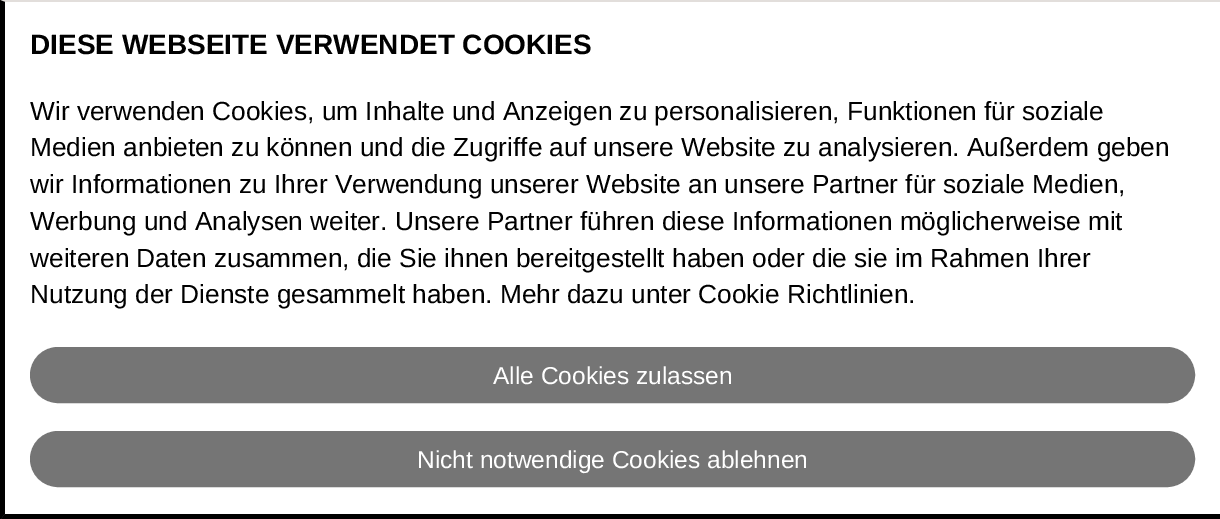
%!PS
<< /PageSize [1220 519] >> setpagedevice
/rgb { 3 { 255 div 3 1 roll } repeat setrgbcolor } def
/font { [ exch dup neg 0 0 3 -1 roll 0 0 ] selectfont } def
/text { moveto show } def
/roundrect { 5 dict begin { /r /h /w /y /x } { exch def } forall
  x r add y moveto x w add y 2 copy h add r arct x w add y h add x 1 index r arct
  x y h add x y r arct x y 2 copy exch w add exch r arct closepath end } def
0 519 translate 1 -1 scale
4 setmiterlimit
255 255 255 rgb
0 0 1220 519 rectfill
226 222 219 rgb
0 0 moveto 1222 0 rlineto -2 2 rlineto -1215 0 rlineto closepath fill
0 0 0 rgb
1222 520 moveto -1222 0 rlineto 5 -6 rlineto 1215 0 rlineto closepath fill
0 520 moveto 0 -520 rlineto 5 2 rlineto 0 512 rlineto closepath fill
117 117 117 rgb
31 348 1163 54 27 roundrect gsave fill grestore
2 setlinewidth
stroke
31 432 1163 54 27 roundrect gsave fill grestore
stroke
/LiberationSans-Bold 28 font
0 0 0 rgb
(DIESE WEBSEITE VERWENDET COOKIES) 30 54 text
/LiberationSans-Regular 26.25 font
(Wir verwenden Cookies, um Inhalte und Anzeigen zu personalisieren, Funktionen für soziale) 30 120 text
(Medien anbieten zu können und die Zugriffe auf unsere Website zu analysieren. Außerdem geben) 30 156 text
(wir Informationen zu Ihrer Verwendung unserer Website an unsere Partner für soziale Medien,) 30 193 text
(Werbung und Analysen weiter. Unsere Partner führen diese Informationen möglicherweise mit) 30 230 text
(weiteren Daten zusammen, die Sie ihnen bereitgestellt haben oder die sie im Rahmen Ihrer) 30 267 text
(Nutzung der Dienste gesammelt haben. Mehr dazu unter Cookie Richtlinien.) 30 303 text
/LiberationSans-Regular 24.5 font
255 255 255 rgb
(Alle Cookies zulassen) 493 384 text
(Nicht notwendige Cookies ablehnen) 417 468 text
showpage
